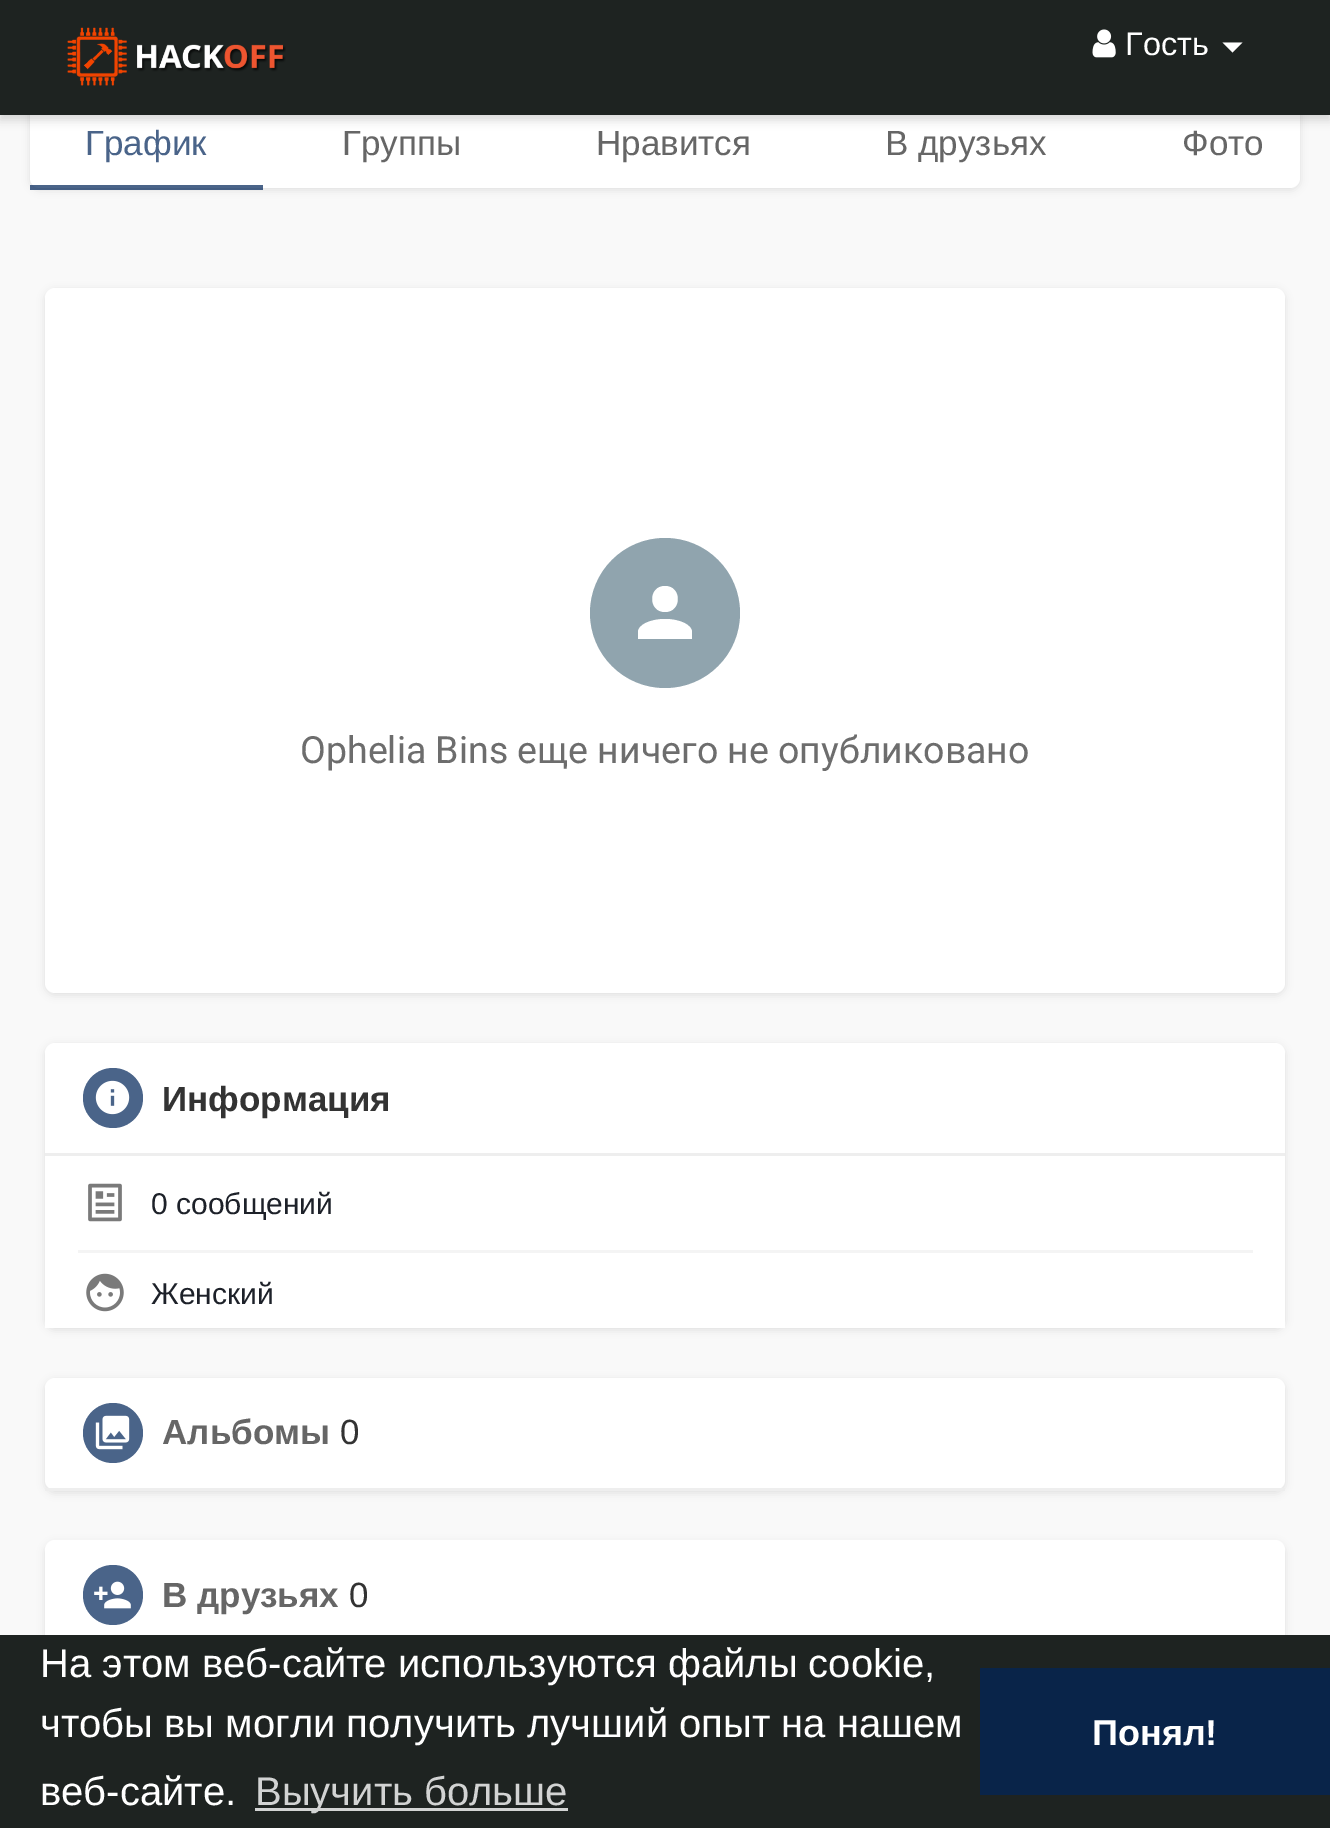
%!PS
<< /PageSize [1330 1828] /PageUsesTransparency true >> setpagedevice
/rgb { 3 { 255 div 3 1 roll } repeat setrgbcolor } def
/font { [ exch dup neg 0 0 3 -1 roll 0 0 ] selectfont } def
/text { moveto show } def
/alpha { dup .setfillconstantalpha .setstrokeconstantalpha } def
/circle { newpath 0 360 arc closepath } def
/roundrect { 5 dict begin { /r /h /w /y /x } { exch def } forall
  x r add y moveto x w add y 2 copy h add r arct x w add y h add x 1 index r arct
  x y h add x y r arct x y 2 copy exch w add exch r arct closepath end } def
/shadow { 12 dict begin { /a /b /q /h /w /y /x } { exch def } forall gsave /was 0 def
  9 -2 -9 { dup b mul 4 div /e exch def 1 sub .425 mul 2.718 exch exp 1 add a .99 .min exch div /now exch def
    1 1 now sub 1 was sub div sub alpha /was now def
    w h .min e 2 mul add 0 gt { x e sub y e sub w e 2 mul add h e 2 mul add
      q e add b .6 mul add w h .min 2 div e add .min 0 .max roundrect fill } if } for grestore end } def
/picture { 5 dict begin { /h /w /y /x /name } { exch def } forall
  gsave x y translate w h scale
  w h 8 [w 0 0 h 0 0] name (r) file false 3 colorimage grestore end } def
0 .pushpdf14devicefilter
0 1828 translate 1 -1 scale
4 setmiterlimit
249 249 249 rgb
0 0 1330 1828 rectfill
0 0 0 rgb
30 35 1270 155 10 4 0.1 shadow
255 255 255 rgb
30 33 1270 155 10 roundrect fill
0 0 0 rgb
0 5 1330 115 0 5 0.15 shadow
30 35 33 rgb
0 0 1330 115 rectfill
(img_01.rgb) 67 27 219 59 picture
(img_02.rgb) 1092 29 24 29 picture
255 255 255 rgb
1222.5 42.5 moveto 20 0 rlineto -10 10 rlineto closepath fill
0.71 alpha
0 36 89 rgb
30 185 233 5 rectfill
1 alpha
0 0 0 rgb
45 290 1240 705 10 4 0.1 shadow
255 255 255 rgb
45 288 1240 705 10 roundrect fill
144 164 174 rgb
665 613 75 circle fill
255 255 255 rgb
665 586 moveto 17 0 17 26 0 26 rcurveto -17 0 -17 -26 0 -26 rcurveto 665 619 moveto 15 0 27 6 27 13 rcurveto 0 7 rlineto -54 0 rlineto 0 -7 rlineto 0 -7 12 -13 27 -13 rcurveto closepath fill
0 0 0 rgb
45 1045 1240 285 10 4 0.1 shadow
255 255 255 rgb
45 1043 1240 285 10 roundrect fill
238 238 238 rgb
45 1153 1240 3 rectfill
74 100 137 rgb
113 1098 30 circle fill
(img_03.rgb) 95 1080 35 35 picture
(img_04.rgb) 88 1183 34 39 picture
244 244 244 rgb
78 1250 1175 3 rectfill
255 255 255 rgb
45 1319 1240 9 rectfill
(img_05.rgb) 86 1273 38 39 picture
0 0 0 rgb
45 1380 1240 113 10 4 0.1 shadow
255 255 255 rgb
45 1378 1240 112 10 roundrect fill
238 238 238 rgb
45 1488 1240 3 rectfill
74 100 137 rgb
113 1433 30 circle fill
(img_06.rgb) 95 1415 35 35 picture
0 0 0 rgb
45 1543 1240 112 10 4 0.1 shadow
255 255 255 rgb
45 1540 1240 113 10 roundrect fill
74 100 137 rgb
113 1595 30 circle fill
(img_07.rgb) 94 1581 37 28 picture
30 35 33 rgb
0 1635 1330 193 rectfill
210 211 211 rgb
255 1808 313 3 rectfill
9 36 73 rgb
980 1668 350 127 rectfill
/LiberationSans-Regular 32.5 font
255 255 255 rgb
(Гость) 1125 55 text
/LiberationSans-Regular 35 font
74 100 137 rgb
(График) 85 155 text
102 102 102 rgb
(Группы) 342 155 text
(Нравится) 596 155 text
(В друзьях) 885 155 text
(Фото) 1182 155 text
/Roboto-Regular 37.5 font
109 109 109 rgb
(Ophelia Bins еще ничего не опубликовано) 300 763 text
/LiberationSans-Bold 35 font
51 51 51 rgb
(Информация) 162 1111 text
/LiberationSans-Regular 30 font
29 33 41 rgb
(0 сообщений) 151 1214 text
(Женский) 151 1304 text
/LiberationSans-Bold 35 font
102 102 102 rgb
(Альбомы) 162 1444 text
/LiberationSans-Regular 35 font
51 51 51 rgb
(0) 340 1444 text
/LiberationSans-Bold 35 font
102 102 102 rgb
(В друзьях) 162 1607 text
/LiberationSans-Regular 35 font
51 51 51 rgb
(0) 349 1607 text
/LiberationSans-Regular 40 font
255 255 255 rgb
(На этом веб-сайте используются файлы cookie,) 40 1677 text
(чтобы вы могли получить лучший опыт на нашем) 40 1737 text
(веб-сайте.) 40 1805 text
210 211 211 rgb
(Выучить больше) 255 1805 text
/LiberationSans-Bold 36 font
255 255 255 rgb
(Понял!) 1092 1745 text
.poppdf14devicefilter showpage
